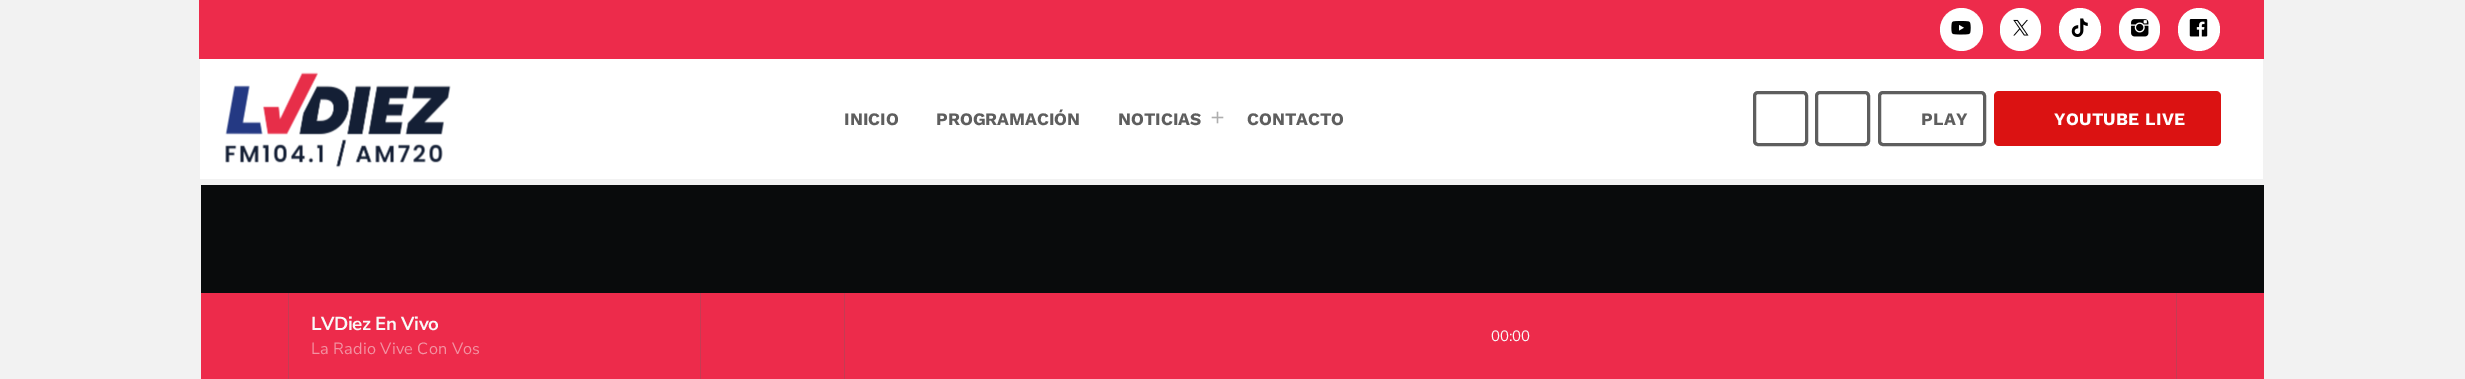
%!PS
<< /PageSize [2465 379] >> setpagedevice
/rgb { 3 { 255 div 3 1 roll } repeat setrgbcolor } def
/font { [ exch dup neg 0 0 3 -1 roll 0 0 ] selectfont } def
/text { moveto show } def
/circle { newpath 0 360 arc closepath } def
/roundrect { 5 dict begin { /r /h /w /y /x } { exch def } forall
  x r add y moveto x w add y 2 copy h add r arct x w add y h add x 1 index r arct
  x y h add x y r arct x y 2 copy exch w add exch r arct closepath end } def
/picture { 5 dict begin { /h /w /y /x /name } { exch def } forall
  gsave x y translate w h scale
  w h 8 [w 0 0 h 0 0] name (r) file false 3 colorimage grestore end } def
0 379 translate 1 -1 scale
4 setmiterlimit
242 242 242 rgb
0 0 2465 379 rectfill
255 255 255 rgb
200 59 2063 120 rectfill
237 43 75 rgb
199 0 2065 59 rectfill
255 255 255 rgb
1961.5 29.5 21.5 circle fill
(img_01.rgb) 1951 21 20 14 picture
2000 8 41 43 20.5 roundrect fill
(img_02.rgb) 2013 19 16 17 picture
2059 8 42 43 21 roundrect fill
(img_03.rgb) 2071 18 17 19 picture
2119 8 41 43 20.5 roundrect fill
(img_04.rgb) 2131 19 18 18 picture
2178 8 42 43 21 roundrect fill
(img_05.rgb) 2189 19 19 18 picture
(img_06.rgb) 225 72 226 96 picture
(img_07.rgb) 1211 111 13 13 picture
94 94 94 rgb
3 setlinewidth
1754.5 92.5 52 52 3.5 roundrect stroke
1816.5 92.5 52 52 3.5 roundrect stroke
1879.5 92.5 105 52 3.5 roundrect stroke
219 18 18 rgb
1994 91 227 55 5 roundrect fill
9 11 12 rgb
201 185 2063 108 rectfill
237 43 75 rgb
201 293 2063 86 rectfill
196 60 83 rgb
700 293 1 86 rectfill
288 293 1 86 rectfill
844 293 1 86 rectfill
2176 293 1 86 rectfill
/WorkSans-Bold 17.5 font
94 94 94 rgb
(INICIO) 844 125 text
(PROGRAMACIÓN) 936 125 text
(NOTICIAS) 1118 125 text
(CONTACTO) 1247 125 text
1921 125 moveto 0.3 0 (PLAY) ashow
255 255 255 rgb
2054 125 moveto 0.3 0 (YOUTUBE LIVE) ashow
/NunitoSans-Bold 18.75 font
249 249 249 rgb
311 330 moveto -0.4 0 (LVDiez En Vivo) ashow
/NunitoSans-Regular 16.25 font
243 146 162 rgb
311 354 moveto 0.2 0 (La Radio Vive Con Vos) ashow
/NunitoSans-Regular 15 font
249 249 249 rgb
(00:00) 1491 341 text
showpage
